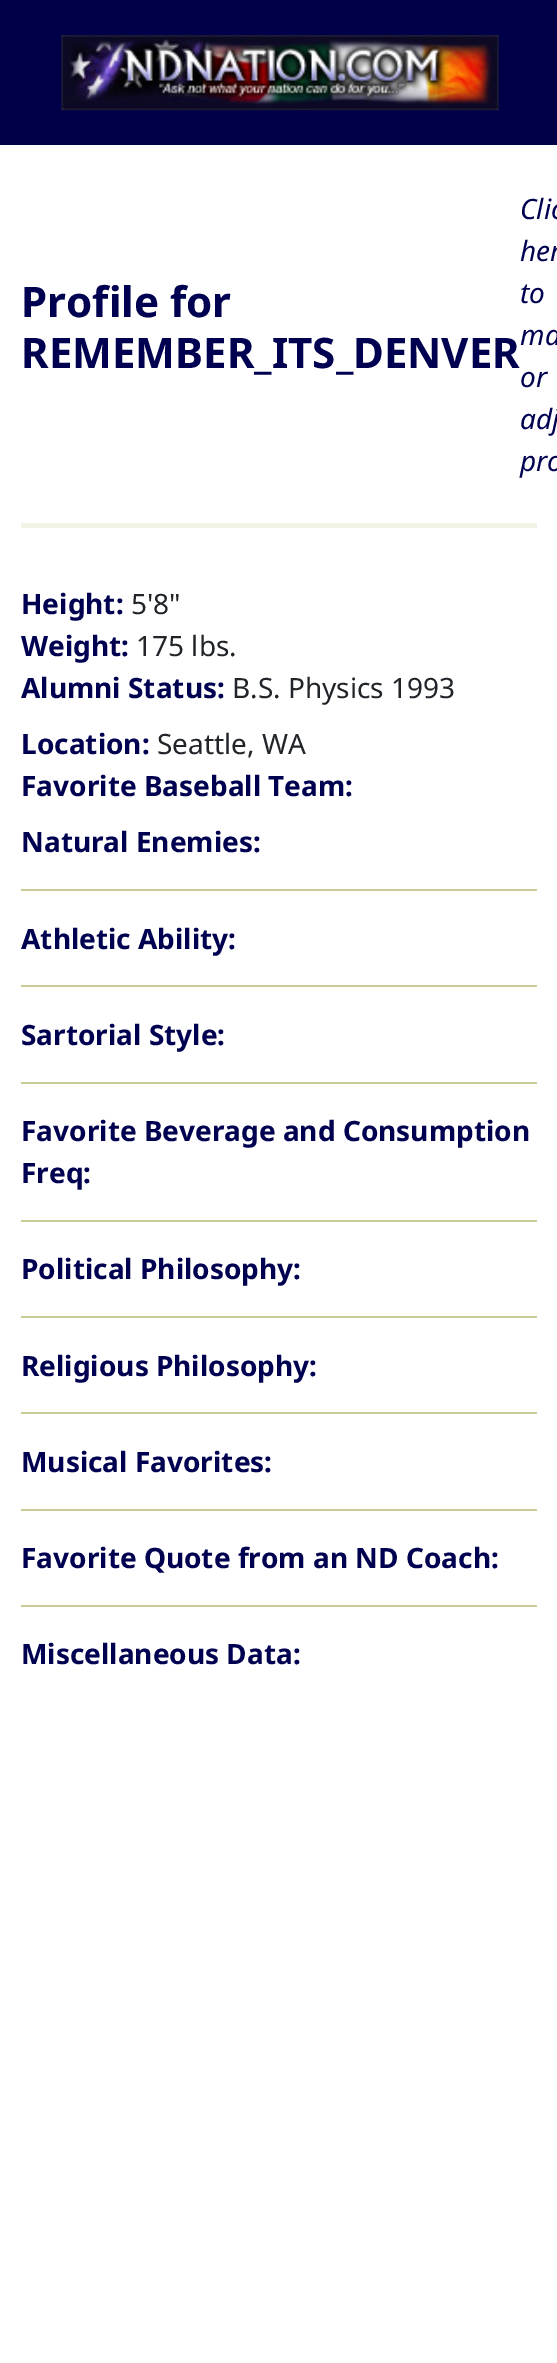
%!PS
<< /PageSize [557 2363] >> setpagedevice
/rgb { 3 { 255 div 3 1 roll } repeat setrgbcolor } def
/font { [ exch dup neg 0 0 3 -1 roll 0 0 ] selectfont } def
/text { moveto show } def
/picture { 5 dict begin { /h /w /y /x /name } { exch def } forall
  gsave x y translate w h scale
  w h 8 [w 0 0 h 0 0] name (r) file false 3 colorimage grestore end } def
0 2363 translate 1 -1 scale
4 setmiterlimit
255 255 255 rgb
0 0 557 2363 rectfill
0 0 72 rgb
0 0 557 145 rectfill
(img_01.rgb) 61 35 438 76 picture
242 242 230 rgb
21 523 516 5 rectfill
204 204 153 rgb
21 889 516 2 rectfill
21 985 516 2 rectfill
21 1082 516 2 rectfill
21 1220 516 2 rectfill
21 1316 516 2 rectfill
21 1412 516 2 rectfill
21 1509 516 2 rectfill
21 1605 516 2 rectfill
/NotoSans-Bold 42.1 font
0 0 80 rgb
(Profile for) 21 317 text
(REMEMBER_ITS_DENVER) 21 368 text
/NotoSans-Italic 28 font
(Clic) 520 219 text
(her) 520 261 text
(to) 520 303 text
(ma) 520 345 text
(or) 520 387 text
(adj) 520 429 text
(pro) 520 471 text
/NotoSans-Bold 28 font
(Height:) 21 614 text
/NotoSans-Regular 28 font
33 37 41 rgb
(5'8") 131 614 text
/NotoSans-Bold 28 font
0 0 80 rgb
(Weight:) 21 656 text
/NotoSans-Regular 28 font
33 37 41 rgb
(175 lbs.) 136 656 text
/NotoSans-Bold 28 font
0 0 80 rgb
(Alumni Status:) 21 698 text
/NotoSans-Regular 28 font
33 37 41 rgb
(B.S. Physics 1993) 232 698 text
/NotoSans-Bold 28 font
0 0 80 rgb
(Location:) 21 754 text
/NotoSans-Regular 28 font
33 37 41 rgb
(Seattle, WA) 157 754 text
/NotoSans-Bold 28 font
0 0 80 rgb
(Favorite Baseball Team:) 21 796 text
(Natural Enemies:) 21 852 text
(Athletic Ability:) 21 949 text
(Sartorial Style:) 21 1045 text
(Favorite Beverage and Consumption) 21 1141 text
(Freq:) 21 1183 text
(Political Philosophy:) 21 1279 text
(Religious Philosophy:) 21 1376 text
(Musical Favorites:) 21 1472 text
(Favorite Quote from an ND Coach:) 21 1568 text
(Miscellaneous Data:) 21 1664 text
showpage
